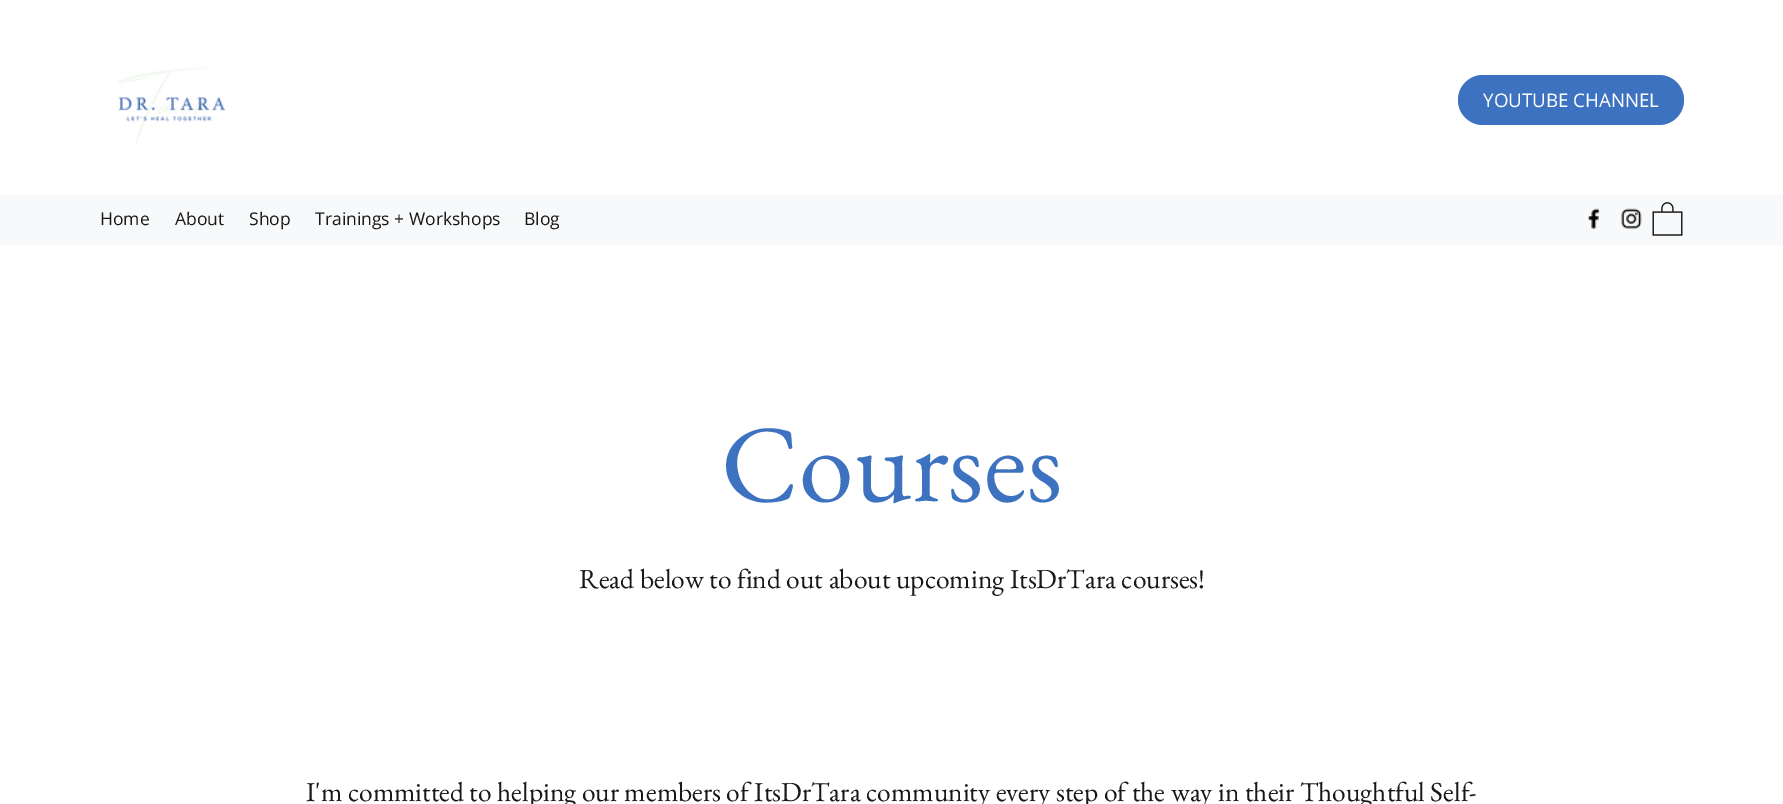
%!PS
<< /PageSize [1783 804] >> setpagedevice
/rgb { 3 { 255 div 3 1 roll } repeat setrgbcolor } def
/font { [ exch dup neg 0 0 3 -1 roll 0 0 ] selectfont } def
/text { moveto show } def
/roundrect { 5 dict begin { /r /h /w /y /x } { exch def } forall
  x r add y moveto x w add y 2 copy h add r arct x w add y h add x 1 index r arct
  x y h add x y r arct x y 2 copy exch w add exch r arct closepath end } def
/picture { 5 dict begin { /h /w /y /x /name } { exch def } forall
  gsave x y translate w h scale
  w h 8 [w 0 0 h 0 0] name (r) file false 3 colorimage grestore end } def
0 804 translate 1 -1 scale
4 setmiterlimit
255 255 255 rgb
0 0 1783 804 rectfill
(img_01.rgb) 117 67 109 77 picture
61 114 193 rgb
1458 75 226 50 25 roundrect fill
248 249 250 rgb
0 195 1783 50 rectfill
(img_02.rgb) 1588 208 12 21 picture
(img_03.rgb) 1621 208 21 21 picture
(img_04.rgb) 1652 202 31 34 picture
/OpenSans-Regular 18.75 font
255 255 255 rgb
(YOUTUBE CHANNEL) 1483 107 text
/OpenSans-Regular 17.5 font
24 24 24 rgb
(Home) 100 225 text
(About) 175 225 text
(Shop) 249 225 text
(Trainings + Workshops) 315 225 text
(Blog) 524 225 text
/EBGaramond-Regular 110 font
61 114 193 rgb
(Courses) 721 501 text
/EBGaramond-Regular 27.5 font
24 24 24 rgb
(Read below to find out about upcoming ItsDrTara courses!) 579 588 text
(I'm committed to helping our members of ItsDrTara community every step of the way in their Thoughtful Self-) 306 801 text
showpage
